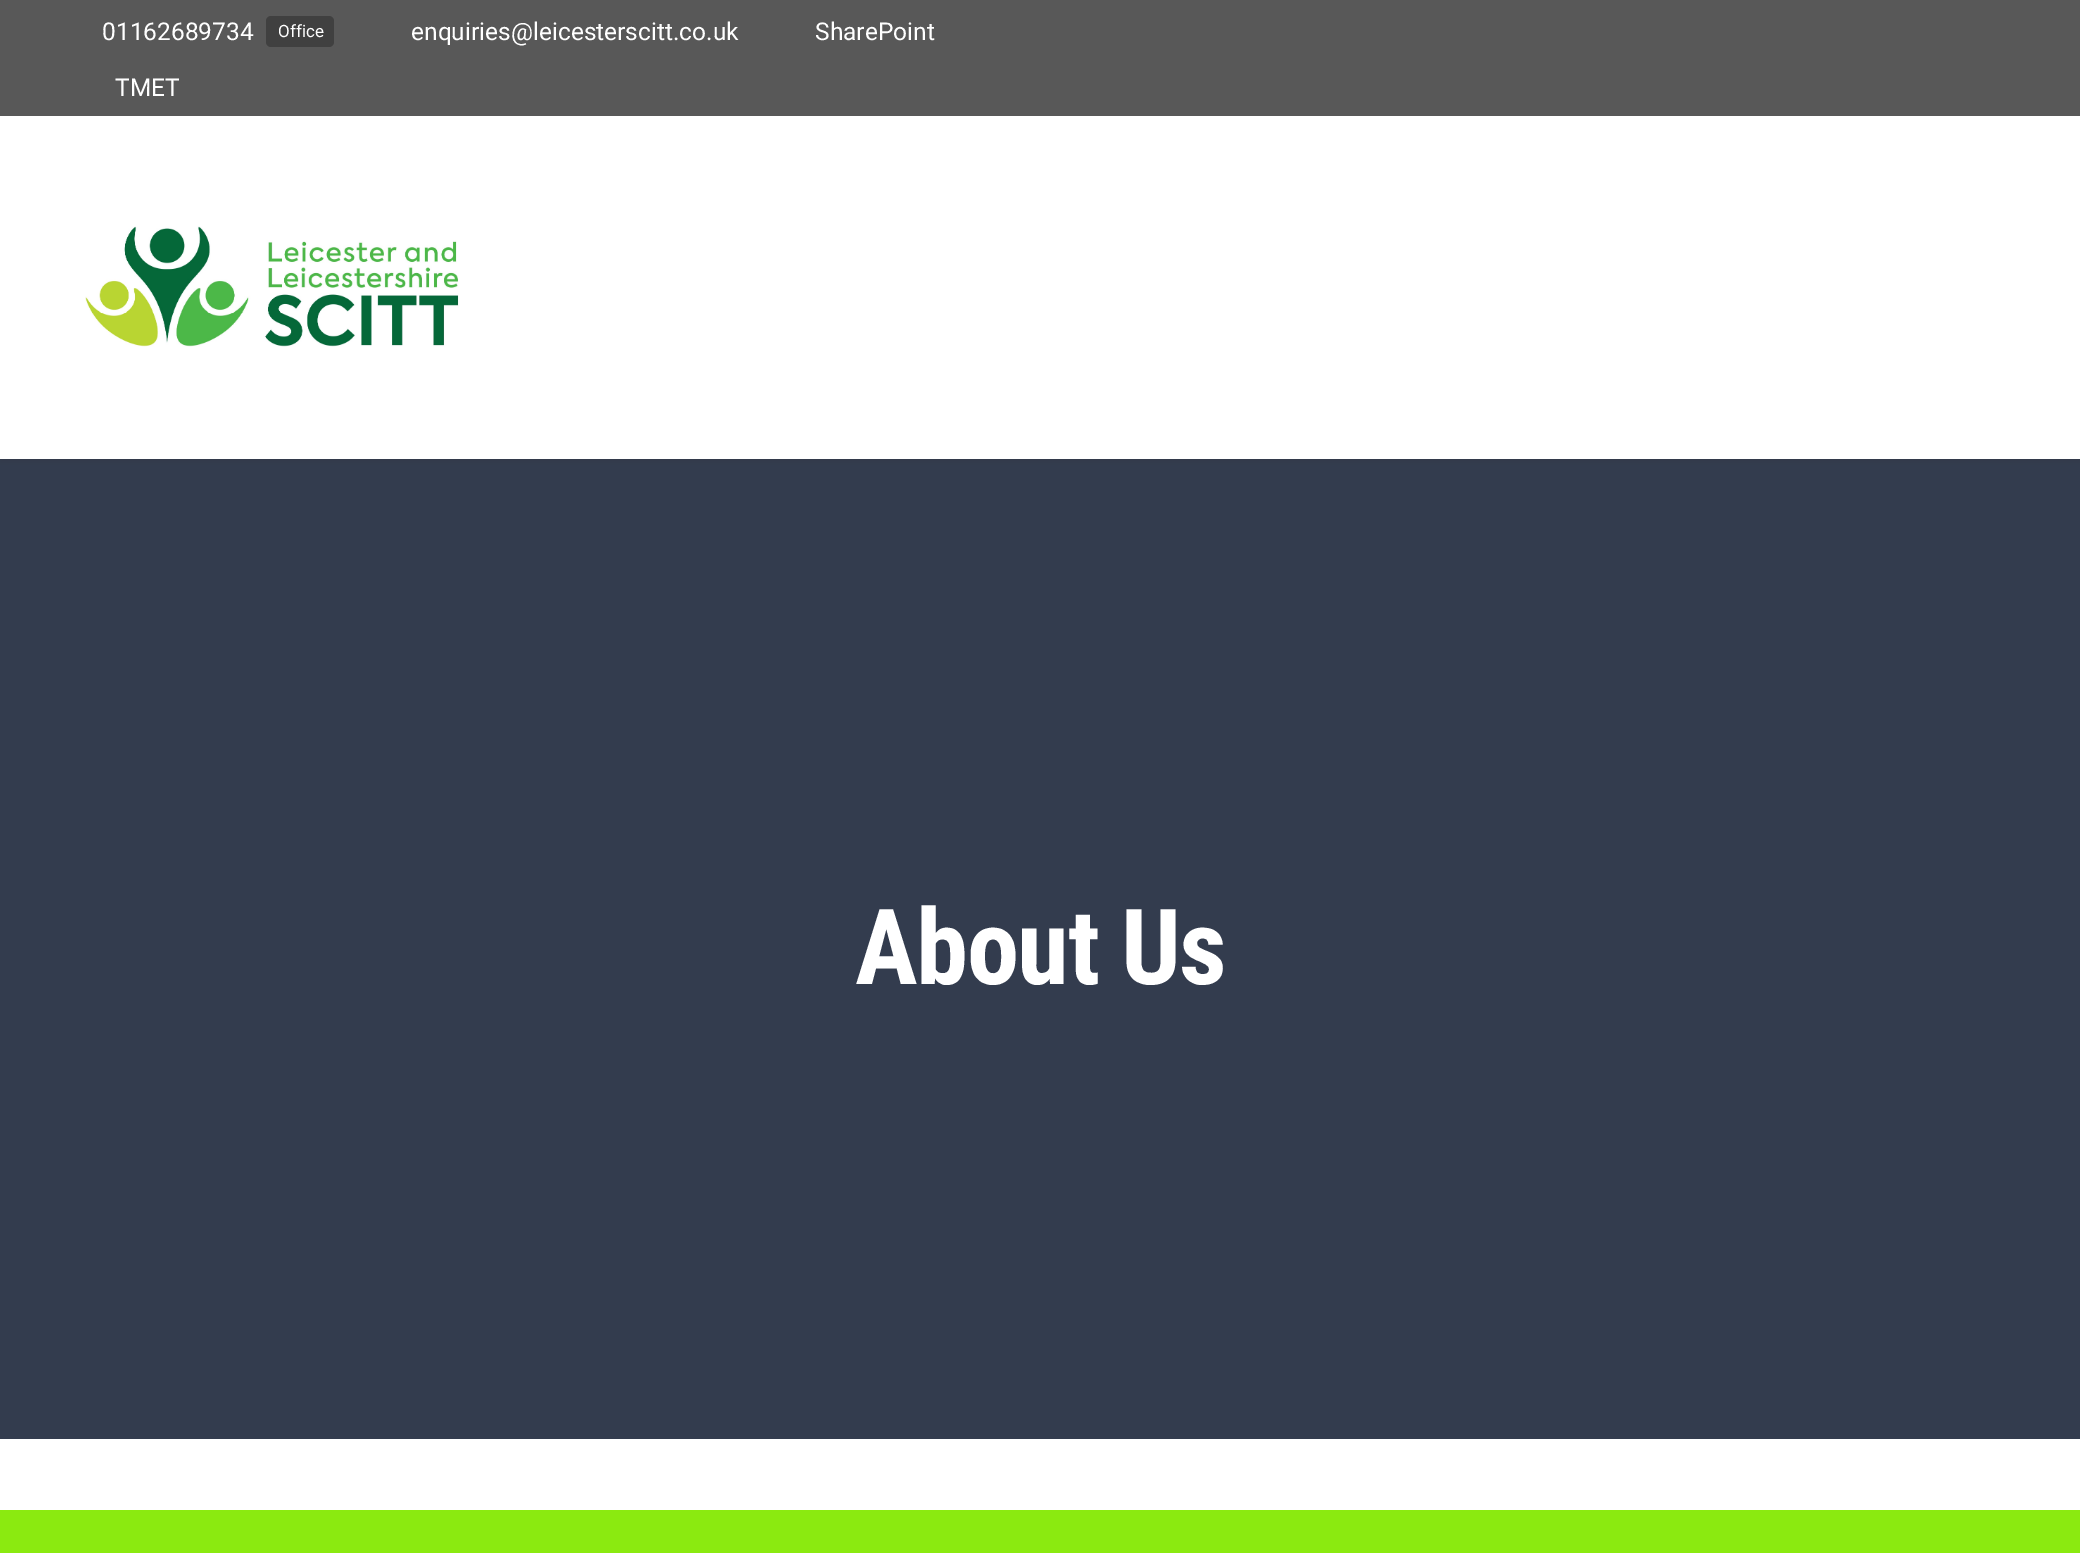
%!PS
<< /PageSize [2080 1553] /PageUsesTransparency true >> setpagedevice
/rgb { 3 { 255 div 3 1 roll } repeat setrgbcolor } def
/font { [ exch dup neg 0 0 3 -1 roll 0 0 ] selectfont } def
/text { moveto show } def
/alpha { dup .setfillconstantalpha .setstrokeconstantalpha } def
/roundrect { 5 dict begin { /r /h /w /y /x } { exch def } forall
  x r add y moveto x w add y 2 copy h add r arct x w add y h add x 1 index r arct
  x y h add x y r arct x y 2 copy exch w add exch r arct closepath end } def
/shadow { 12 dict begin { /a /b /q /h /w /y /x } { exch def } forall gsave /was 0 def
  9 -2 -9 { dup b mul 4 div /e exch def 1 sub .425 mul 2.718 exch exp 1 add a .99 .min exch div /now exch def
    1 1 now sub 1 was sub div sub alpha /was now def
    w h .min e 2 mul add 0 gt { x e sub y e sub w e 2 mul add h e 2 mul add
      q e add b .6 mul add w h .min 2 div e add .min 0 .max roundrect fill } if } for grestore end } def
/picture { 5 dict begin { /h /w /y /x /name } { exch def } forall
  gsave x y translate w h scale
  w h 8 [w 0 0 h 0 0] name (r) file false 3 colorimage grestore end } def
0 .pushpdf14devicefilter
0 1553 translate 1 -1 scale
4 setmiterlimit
255 255 255 rgb
0 0 2080 1553 rectfill
88 88 88 rgb
0 0 2080 116 rectfill
64 64 64 rgb
266 16 68 31 5 roundrect fill
51 60 78 rgb
0 459 2080 980 rectfill
33 33 33 rgb
0 119 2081 343 0 4.5 0.1 shadow
255 255 255 rgb
0 116 2080 343 rectfill
(img_01.rgb) 85 226 374 121 picture
139 234 16 rgb
0 1510 2080 43 rectfill
/Roboto-Regular 24.5 font
255 255 255 rgb
(01162689734) 102 40 text
/Roboto-Regular 17 font
(Office) 278 37 text
/Roboto-Regular 24.5 font
(enquiries@leicesterscitt.co.uk) 411 40 text
(SharePoint) 815 40 text
(TMET) 115 96 text
/RobotoCondensed-Bold 105 font
855 984 moveto -1.5 0 (About Us) ashow
.poppdf14devicefilter showpage
